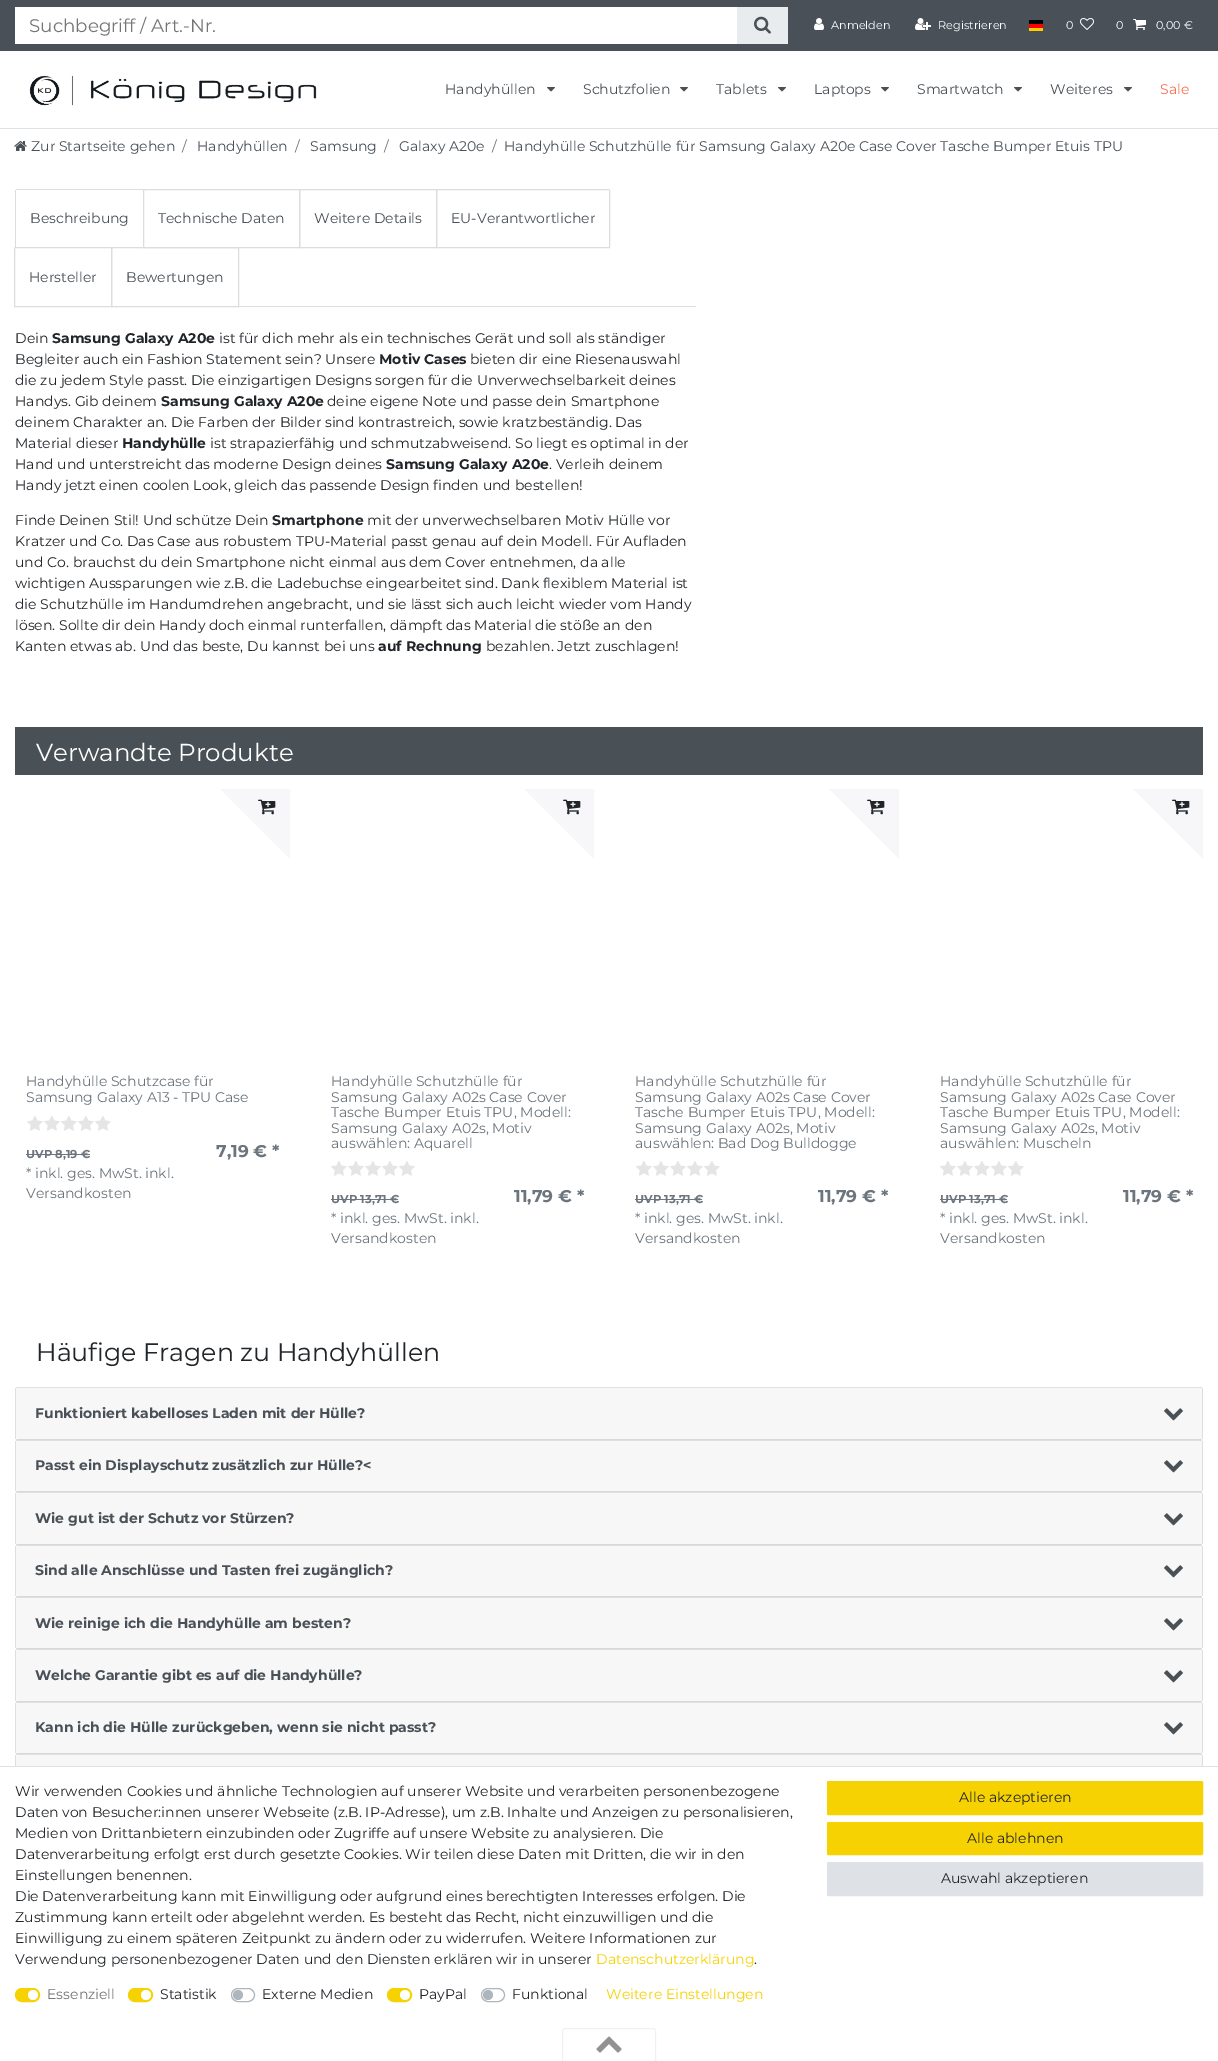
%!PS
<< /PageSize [1218 2061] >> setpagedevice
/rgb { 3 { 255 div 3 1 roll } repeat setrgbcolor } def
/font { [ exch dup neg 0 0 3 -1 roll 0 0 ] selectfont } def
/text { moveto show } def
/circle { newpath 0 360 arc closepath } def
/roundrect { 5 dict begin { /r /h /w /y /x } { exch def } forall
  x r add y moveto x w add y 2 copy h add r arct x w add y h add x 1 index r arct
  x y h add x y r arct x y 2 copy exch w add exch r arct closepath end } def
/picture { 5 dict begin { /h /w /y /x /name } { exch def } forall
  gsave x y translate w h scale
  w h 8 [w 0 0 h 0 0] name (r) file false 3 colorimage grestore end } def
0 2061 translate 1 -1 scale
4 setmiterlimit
255 255 255 rgb
0 0 1218 2061 rectfill
73 80 87 rgb
0 0 1218 51 rectfill
255 255 255 rgb
15 7 722 37 rectfill
233 236 239 rgb
737 7 51 37 rectfill
(img_01.rgb) 754 16 17 18 picture
(img_02.rgb) 814 18 10 12 picture
(img_03.rgb) 915 18 16 12 picture
255 204 0 rgb
1029 28 14 3 rectfill
0 0 0 rgb
1029 20 14 4 rectfill
255 0 0 rgb
1029 24 14 4 rectfill
(img_04.rgb) 1080 18 14 12 picture
(img_05.rgb) 1133 19 13 11 picture
222 226 230 rgb
0 128 1218 1 rectfill
(img_06.rgb) 29 75 288 31 picture
(img_07.rgb) 547 87 8 5 picture
(img_07.rgb) 680 87 8 5 picture
(img_07.rgb) 778 87 8 5 picture
(img_07.rgb) 881 87 8 5 picture
(img_07.rgb) 1014 87 8 5 picture
(img_07.rgb) 1124 87 8 5 picture
(img_08.rgb) 14 141 13 10 picture
221 221 221 rgb
239 306 457 1 rectfill
16 189 moveto 0 1 rlineto 127 0 rlineto 1 0 rlineto -1 -1 rlineto closepath fill
16 190 moveto -1 0 rlineto 0 58 rlineto 1 -1 rlineto closepath fill
144.5 189.5 moveto 154 0 rlineto 0.5 0 1 0.5 1 1 rcurveto 0 57 rlineto -156 0 rlineto 0 -57 rlineto 0 -0.5 0.5 -1 1 -1 rcurveto closepath stroke
300.5 189.5 moveto 135 0 rlineto 0.5 0 1 0.5 1 1 rcurveto 0 57 rlineto -137 0 rlineto 0 -57 rlineto 0 -0.5 0.5 -1 1 -1 rcurveto closepath stroke
437.5 189.5 moveto 171 0 rlineto 0.5 0 1 0.5 1 1 rcurveto 0 57 rlineto -173 0 rlineto 0 -57 rlineto 0 -0.5 0.5 -1 1 -1 rcurveto closepath stroke
15.5 247.5 moveto 95 0 rlineto 0.5 0 1 0.5 1 1 rcurveto 0 58 rlineto -97 0 rlineto 0 -58 rlineto 0 -0.5 0.5 -1 1 -1 rcurveto closepath stroke
112.5 247.5 moveto 125 0 rlineto 0.5 0 1 0.5 1 1 rcurveto 0 58 rlineto -127 0 rlineto 0 -58 rlineto 0 -0.5 0.5 -1 1 -1 rcurveto closepath stroke
73 80 86 rgb
15 727 1188 48 rectfill
247 247 249 rgb
290 789 moveto 0 70 rlineto -70 -70 rlineto closepath fill
(img_09.rgb) 258 799 18 16 picture
(img_10.rgb) 27 1116 16 15 picture
(img_10.rgb) 44 1116 16 15 picture
(img_10.rgb) 61 1116 16 15 picture
(img_10.rgb) 78 1116 16 15 picture
(img_10.rgb) 95 1116 16 15 picture
108 117 125 rgb
26 1154 64 1 rectfill
247 247 249 rgb
594 789 moveto 0 70 rlineto -70 -70 rlineto closepath fill
(img_09.rgb) 563 799 18 16 picture
(img_10.rgb) 331 1161 16 15 picture
(img_10.rgb) 348 1161 16 15 picture
(img_10.rgb) 365 1161 16 15 picture
(img_10.rgb) 382 1161 16 15 picture
(img_10.rgb) 399 1161 16 15 picture
108 117 125 rgb
331 1199 67 1 rectfill
247 247 249 rgb
899 789 moveto 0 70 rlineto -70 -70 rlineto closepath fill
(img_09.rgb) 867 799 18 16 picture
(img_10.rgb) 636 1161 16 15 picture
(img_10.rgb) 653 1161 16 15 picture
(img_10.rgb) 670 1161 16 15 picture
(img_10.rgb) 687 1161 16 15 picture
(img_10.rgb) 704 1161 16 15 picture
108 117 125 rgb
635 1199 67 1 rectfill
247 247 249 rgb
1203 789 moveto 0 70 rlineto -70 -70 rlineto closepath fill
(img_09.rgb) 1172 799 18 16 picture
(img_10.rgb) 940 1161 16 15 picture
(img_10.rgb) 957 1161 16 15 picture
(img_10.rgb) 974 1161 16 15 picture
(img_10.rgb) 991 1161 16 15 picture
(img_10.rgb) 1008 1161 16 15 picture
108 117 125 rgb
940 1199 67 1 rectfill
223 223 223 rgb
16 1387 1186 1 rectfill
1202 1388 1 51 rectfill
15 1388 1 51 rectfill
247 247 247 rgb
16.5 1388 moveto 1185 0 rlineto 0.5 0 0.5 0 0.5 0.5 rcurveto 0 51.5 rlineto -1186 0 rlineto 0 -51.5 rlineto 0 -0.5 0 -0.5 0.5 -0.5 rcurveto closepath fill
216 216 216 rgb
1202 1440 moveto -1 -1 rlineto -1184 0 rlineto -1 1 rlineto closepath fill
(img_11.rgb) 1164 1408 19 13 picture
223 223 223 rgb
16 1440 1186 1 rectfill
1202 1441 1 50 rectfill
15 1441 1 50 rectfill
247 247 247 rgb
16.5 1441 moveto 1185 0 rlineto 0.5 0 0.5 0 0.5 0.5 rcurveto 0 50.5 rlineto -1186 0 rlineto 0 -50.5 rlineto 0 -0.5 0 -0.5 0.5 -0.5 rcurveto closepath fill
216 216 216 rgb
1202 1492 moveto -1 -1 rlineto -1184 0 rlineto -1 1 rlineto closepath fill
(img_11.rgb) 1164 1460 19 13 picture
223 223 223 rgb
16 1492 1186 1 rectfill
1202 1493 1 51 rectfill
15 1493 1 51 rectfill
247 247 247 rgb
16.5 1493 moveto 1185 0 rlineto 0.5 0 0.5 0 0.5 0.5 rcurveto 0 51.5 rlineto -1186 0 rlineto 0 -51.5 rlineto 0 -0.5 0 -0.5 0.5 -0.5 rcurveto closepath fill
216 216 216 rgb
1202 1545 moveto -1 -1 rlineto -1184 0 rlineto -1 1 rlineto closepath fill
(img_11.rgb) 1164 1513 19 13 picture
223 223 223 rgb
16 1545 1186 1 rectfill
1202 1546 1 50 rectfill
15 1546 1 50 rectfill
247 247 247 rgb
16.5 1546 moveto 1185 0 rlineto 0.5 0 0.5 0 0.5 0.5 rcurveto 0 50.5 rlineto -1186 0 rlineto 0 -50.5 rlineto 0 -0.5 0 -0.5 0.5 -0.5 rcurveto closepath fill
216 216 216 rgb
1202 1597 moveto -1 -1 rlineto -1184 0 rlineto -1 1 rlineto closepath fill
(img_11.rgb) 1164 1565 19 13 picture
223 223 223 rgb
16 1597 1186 1 rectfill
1202 1598 1 50 rectfill
15 1598 1 50 rectfill
247 247 247 rgb
16.5 1598 moveto 1185 0 rlineto 0.5 0 0.5 0 0.5 0.5 rcurveto 0 50.5 rlineto -1186 0 rlineto 0 -50.5 rlineto 0 -0.5 0 -0.5 0.5 -0.5 rcurveto closepath fill
216 216 216 rgb
1202 1649 moveto -1 -1 rlineto -1184 0 rlineto -1 1 rlineto closepath fill
(img_11.rgb) 1164 1618 19 13 picture
223 223 223 rgb
16 1649 1186 1 rectfill
1202 1650 1 51 rectfill
15 1650 1 51 rectfill
247 247 247 rgb
16.5 1650 moveto 1185 0 rlineto 0.5 0 0.5 0 0.5 0.5 rcurveto 0 51.5 rlineto -1186 0 rlineto 0 -51.5 rlineto 0 -0.5 0 -0.5 0.5 -0.5 rcurveto closepath fill
216 216 216 rgb
1202 1702 moveto -1 -1 rlineto -1184 0 rlineto -1 1 rlineto closepath fill
(img_11.rgb) 1164 1670 19 13 picture
223 223 223 rgb
16 1702 1186 1 rectfill
1202 1703 1 50 rectfill
15 1703 1 50 rectfill
247 247 247 rgb
16.5 1703 moveto 1185 0 rlineto 0.5 0 0.5 0 0.5 0.5 rcurveto 0 50.5 rlineto -1186 0 rlineto 0 -50.5 rlineto 0 -0.5 0 -0.5 0.5 -0.5 rcurveto closepath fill
216 216 216 rgb
1202 1754 moveto -1 -1 rlineto -1184 0 rlineto -1 1 rlineto closepath fill
(img_11.rgb) 1164 1722 19 13 picture
223 223 223 rgb
16 1754 1186 1 rectfill
1202 1755 1 11 rectfill
15 1755 1 11 rectfill
247 247 247 rgb
16.5 1755 moveto 1185 0 rlineto 0.5 0 0.5 0 0.5 0.5 rcurveto 0 51.5 rlineto -1186 0 rlineto 0 -51.5 rlineto 0 -0.5 0 -0.5 0.5 -0.5 rcurveto closepath fill
255 255 255 rgb
16 1767 1186 40 rectfill
222 226 230 rgb
0 1766 1218 1 rectfill
247 210 2 rgb
15.5 1988.5 24 13 6.5 roundrect gsave fill grestore
stroke
255 255 255 rgb
33 1995 5 circle fill
247 210 2 rgb
128.5 1988.5 24 13 6.5 roundrect gsave fill grestore
stroke
255 255 255 rgb
146 1995 5 circle fill
173 181 189 rgb
231.5 1988.5 23 13 6.5 roundrect stroke
238 1995 5 circle fill
247 210 2 rgb
387.5 1988.5 24 13 6.5 roundrect gsave fill grestore
stroke
255 255 255 rgb
405 1995 5 circle fill
173 181 189 rgb
481.5 1988.5 23 13 6.5 roundrect stroke
488 1995 5 circle fill
247 210 2 rgb
827.5 1781.5 375 33 1 roundrect gsave fill grestore
stroke
827.5 1822.5 375 32 1 roundrect gsave fill grestore
stroke
222 226 230 rgb
827.5 1862.5 375 33 1 roundrect gsave fill grestore
stroke
239 241 243 rgb
562.5 2028.5 93 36 2.5 roundrect stroke
(img_12.rgb) 596 2036 26 17 picture
/Montserrat-Regular 18.25 font
117 117 117 rgb
(Suchbegriff / Art.-Nr.) 29 32 text
/Montserrat-Regular 11.25 font
255 255 255 rgb
(Anmelden) 831 29 text
(Registrieren) 938 29 text
(0) 1066 29 text
(0) 1116 29 text
(0,00 €) 1156 29 text
/Montserrat-Regular 14 font
73 80 87 rgb
(Handyhüllen) 445 94 text
(Schutzfolien) 583 94 text
(Tablets) 716 94 text
(Laptops) 814 94 text
(Smartwatch) 917 94 text
(Weiteres) 1050 94 text
251 110 80 rgb
(Sale) 1160 94 text
73 80 87 rgb
(Zur Startseite gehen) 31 151 text
108 117 125 rgb
(/) 182 151 text
73 80 87 rgb
(Handyhüllen) 197 151 text
108 117 125 rgb
(/) 295 151 text
73 80 87 rgb
(Samsung) 310 151 text
108 117 125 rgb
(/) 384 151 text
73 80 87 rgb
(Galaxy A20e) 399 151 text
108 117 125 rgb
(/) 492 151 text
73 80 87 rgb
(Handyhülle Schutzhülle für Samsung Galaxy A20e Case Cover Tasche Bumper Etuis TPU) 504 151 text
(Beschreibung) 30 223 text
(Technische Daten) 158 223 text
(Weitere Details) 314 223 text
(EU-Verantwortlicher) 451 223 text
(Hersteller) 29 282 text
(Bewertungen) 126 282 text
33 37 41 rgb
(Dein) 15 343 text
/Montserrat-Bold 14 font
(Samsung Galaxy A20e) 52 343 text
/Montserrat-Regular 14 font
(ist für dich mehr als ein technisches Gerät und soll als ständiger) 219 343 text
(Begleiter auch ein Fashion Statement sein? Unsere) 15 364 text
/Montserrat-Bold 14 font
(Motiv Cases) 379 364 text
/Montserrat-Regular 14 font
(bieten dir eine Riesenauswahl) 470 364 text
(die zu jedem Style passt. Die einzigartigen Designs sorgen für die Unverwechselbarkeit deines) 15 385 text
(Handys. Gib deinem) 15 406 text
/Montserrat-Bold 14 font
(Samsung Galaxy A20e) 161 406 text
/Montserrat-Regular 14 font
(deine eigene Note und passe dein Smartphone) 327 406 text
(deinem Charakter an. Die Farben der Bilder sind kontrastreich, sowie kratzbeständig. Das) 15 427 text
(Material dieser) 15 448 text
/Montserrat-Bold 14 font
(Handyhülle) 122 448 text
/Montserrat-Regular 14 font
(ist strapazierfähig und schmutzabweisend. So liegt es optimal in der) 210 448 text
(Hand und unterstreicht das moderne Design deines) 15 469 text
/Montserrat-Bold 14 font
(Samsung Galaxy A20e) 386 469 text
/Montserrat-Regular 14 font
(. Verleih deinem) 549 469 text
(Handy jetzt einen coolen Look, gleich das passende Design finden und bestellen!) 15 490 text
(Finde Deinen Stil! Und schütze Dein) 15 525 text
/Montserrat-Bold 14 font
(Smartphone) 272 525 text
/Montserrat-Regular 14 font
(mit der unverwechselbaren Motiv Hülle vor) 367 525 text
(Kratzer und Co. Das Case aus robustem TPU-Material passt genau auf dein Modell. Für Aufladen) 15 546 text
(und Co. brauchst du dein Smartphone nicht einmal aus dem Cover entnehmen, da alle) 15 567 text
(wichtigen Aussparungen wie z.B. die Ladebuchse eingearbeitet sind. Dank flexiblem Material ist) 15 588 text
(die Schutzhülle im Handumdrehen angebracht, und sie lässt sich auch leicht wieder vom Handy) 15 609 text
(lösen. Sollte dir dein Handy doch einmal runterfallen, dämpft das Material die stöße an den) 15 630 text
(Kanten etwas ab. Und das beste, Du kannst bei uns) 15 651 text
/Montserrat-Bold 14 font
(auf Rechnung) 378 651 text
/Montserrat-Regular 14 font
(bezahlen. Jetzt zuschlagen!) 486 651 text
/Montserrat-Regular 24.5 font
255 255 255 rgb
(Verwandte Produkte) 36 761 text
/Montserrat-Regular 14 font
108 117 125 rgb
(Handyhülle Schutzcase für) 26 1086 text
(Samsung Galaxy A13 - TPU Case) 26 1102 text
/Montserrat-Bold 11.5 font
(UVP 8,19 €) 26 1158 text
/Montserrat-Bold 17 font
(7,19 € *) 216 1157 text
/Montserrat-Regular 14 font
(* inkl. ges. MwSt. inkl.) 26 1178 text
(Versandkosten) 26 1198 text
(Handyhülle Schutzhülle für) 331 1086 text
(Samsung Galaxy A02s Case Cover) 331 1102 text
(Tasche Bumper Etuis TPU, Modell:) 331 1117 text
(Samsung Galaxy A02s, Motiv) 331 1133 text
(auswählen: Aquarell) 331 1148 text
/Montserrat-Bold 11.5 font
(UVP 13,71 €) 331 1203 text
/Montserrat-Bold 17 font
(11,79 € *) 514 1202 text
/Montserrat-Regular 14 font
(* inkl. ges. MwSt. inkl.) 331 1223 text
(Versandkosten) 331 1243 text
(Handyhülle Schutzhülle für) 635 1086 text
(Samsung Galaxy A02s Case Cover) 635 1102 text
(Tasche Bumper Etuis TPU, Modell:) 635 1117 text
(Samsung Galaxy A02s, Motiv) 635 1133 text
(auswählen: Bad Dog Bulldogge) 635 1148 text
/Montserrat-Bold 11.5 font
(UVP 13,71 €) 635 1203 text
/Montserrat-Bold 17 font
(11,79 € *) 818 1202 text
/Montserrat-Regular 14 font
(* inkl. ges. MwSt. inkl.) 635 1223 text
(Versandkosten) 635 1243 text
(Handyhülle Schutzhülle für) 940 1086 text
(Samsung Galaxy A02s Case Cover) 940 1102 text
(Tasche Bumper Etuis TPU, Modell:) 940 1117 text
(Samsung Galaxy A02s, Motiv) 940 1133 text
(auswählen: Muscheln) 940 1148 text
/Montserrat-Bold 11.5 font
(UVP 13,71 €) 940 1203 text
/Montserrat-Bold 17 font
(11,79 € *) 1123 1202 text
/Montserrat-Regular 14 font
(* inkl. ges. MwSt. inkl.) 940 1223 text
(Versandkosten) 940 1243 text
/Montserrat-Regular 25.25 font
33 37 41 rgb
(Häufige Fragen zu Handyhüllen) 36 1361 text
/Montserrat-Bold 14 font
73 80 87 rgb
(Funktioniert kabelloses Laden mit der Hülle?) 35 1418 text
(Passt ein Displayschutz zusätzlich zur Hülle?<) 35 1470 text
(Wie gut ist der Schutz vor Stürzen?) 35 1523 text
(Sind alle Anschlüsse und Tasten frei zugänglich?) 35 1575 text
(Wie reinige ich die Handyhülle am besten?) 35 1628 text
(Welche Garantie gibt es auf die Handyhülle?) 35 1680 text
(Kann ich die Hülle zurückgeben, wenn sie nicht passt?) 35 1732 text
/Montserrat-Regular 14 font
33 37 41 rgb
(Wir verwenden Cookies und ähnliche Technologien auf unserer Website und verarbeiten personenbezogene) 15 1796 text
(Daten von Besucher:innen unserer Webseite \(z.B. IP-Adresse\), um z.B. Inhalte und Anzeigen zu personalisieren,) 15 1817 text
(Medien von Drittanbietern einzubinden oder Zugriffe auf unsere Website zu analysieren. Die) 15 1838 text
(Datenverarbeitung erfolgt erst durch gesetzte Cookies. Wir teilen diese Daten mit Dritten, die wir in den) 15 1859 text
(Einstellungen benennen.) 15 1880 text
(Die Datenverarbeitung kann mit Einwilligung oder aufgrund eines berechtigten Interesses erfolgen. Die) 15 1901 text
(Zustimmung kann erteilt oder abgelehnt werden. Es besteht das Recht, nicht einzuwilligen und die) 15 1922 text
(Einwilligung zu einem späteren Zeitpunkt zu ändern oder zu widerrufen. Weitere Informationen zur) 15 1943 text
(Verwendung personenbezogener Daten und den Diensten erklären wir in unserer) 15 1964 text
247 210 2 rgb
(Datenschutzerklärung) 596 1964 text
33 37 41 rgb
(.) 754 1964 text
117 117 117 rgb
(Essenziell) 47 1999 text
33 37 41 rgb
(Statistik) 160 1999 text
(Externe Medien) 262 1999 text
(PayPal) 419 1999 text
(Funktional) 512 1999 text
247 210 2 rgb
(Weitere Einstellungen) 606 1999 text
33 37 41 rgb
(Alle akzeptieren) 959 1802 text
(Alle ablehnen) 967 1843 text
(Auswahl akzeptieren) 941 1883 text
showpage
